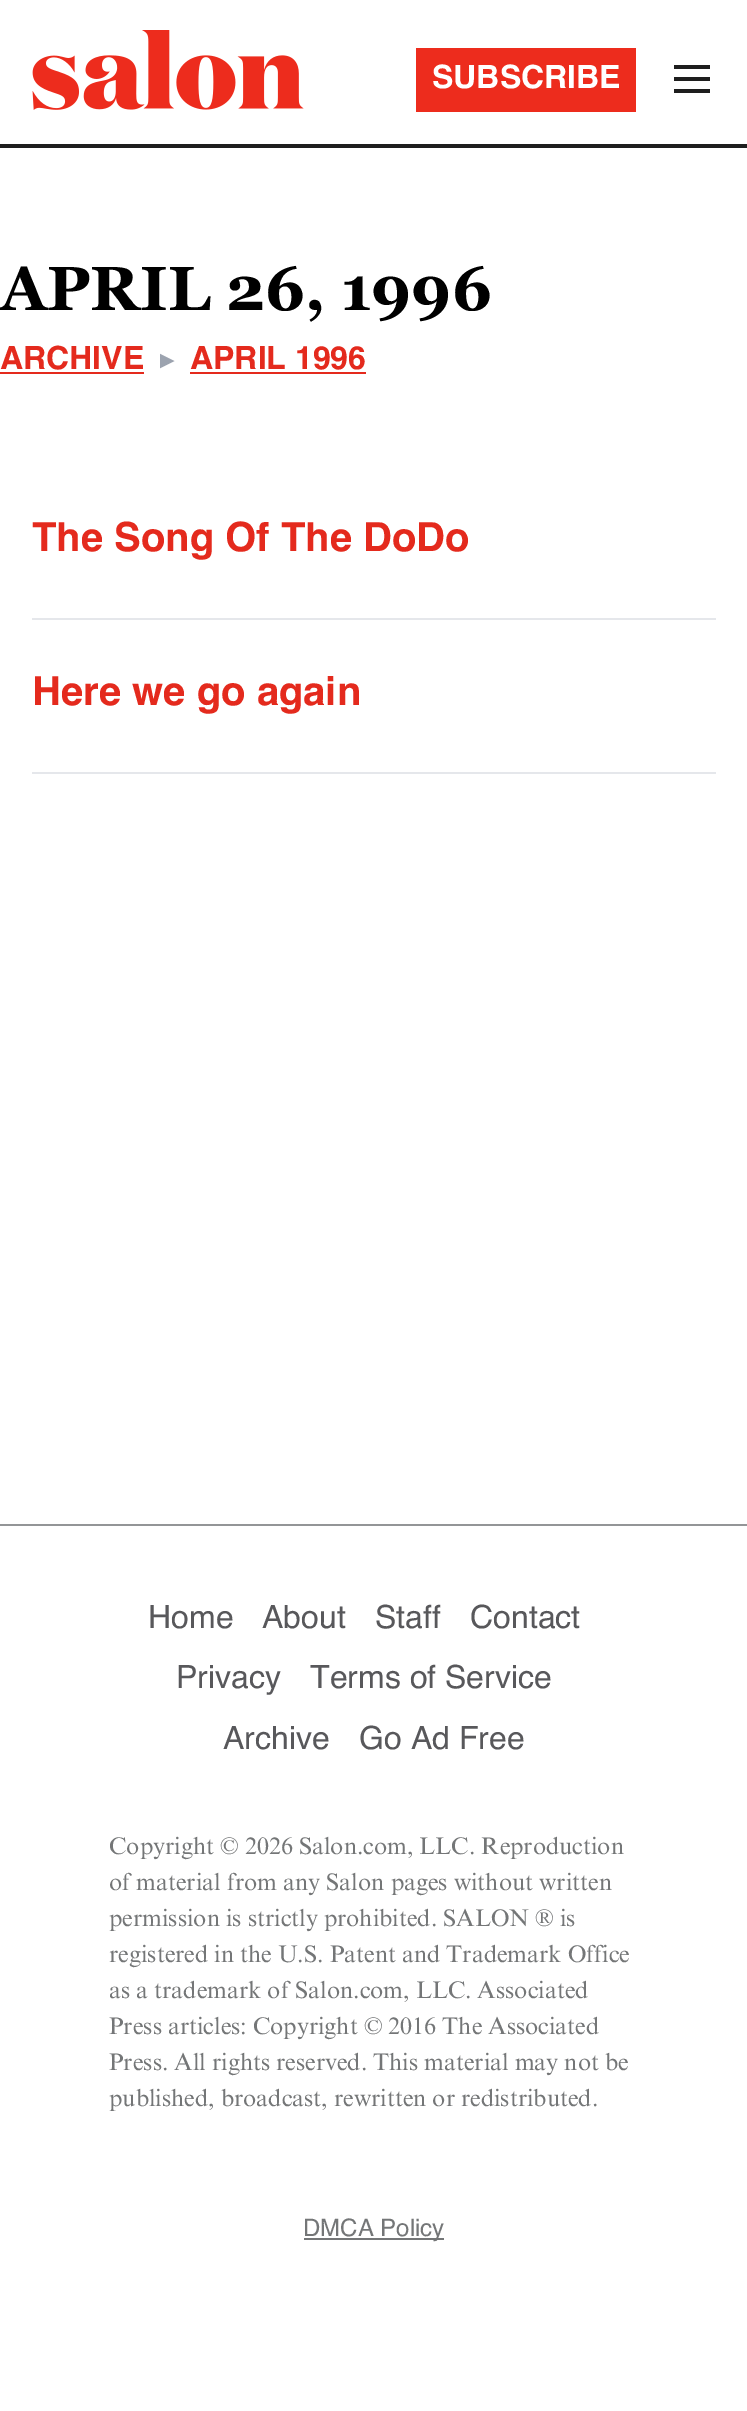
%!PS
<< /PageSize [747 2411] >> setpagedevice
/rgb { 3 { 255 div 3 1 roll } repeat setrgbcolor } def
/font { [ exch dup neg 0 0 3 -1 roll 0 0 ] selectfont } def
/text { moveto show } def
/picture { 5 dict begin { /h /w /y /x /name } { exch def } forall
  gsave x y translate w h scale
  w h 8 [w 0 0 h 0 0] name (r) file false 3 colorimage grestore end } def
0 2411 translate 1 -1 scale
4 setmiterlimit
255 255 255 rgb
0 0 747 2411 rectfill
30 30 30 rgb
0 144 747 4 rectfill
(img_01.rgb) 32 30 272 80 picture
237 44 29 rgb
416 48 220 64 rectfill
30 30 30 rgb
674 65 moveto 36 0 rlineto 0 4 rlineto -36 0 rlineto closepath 674 77 moveto 36 0 rlineto 0 4 rlineto -36 0 rlineto closepath 674 89 moveto 36 0 rlineto 0 4 rlineto -36 0 rlineto closepath fill
228 42 29 rgb
0 372 144 2 rectfill
190 372 176 2 rectfill
229 231 235 rgb
32 618 684 2 rectfill
32 772 684 2 rectfill
147 149 151 rgb
0 1524 747 2 rectfill
116 118 119 rgb
304 2238 140 2 rectfill
/Helvetica-Bold 32 font
255 255 255 rgb
(SUBSCRIBE) 432 88 text
/Georgia-Bold 62 font
0 0 0 rgb
(APRIL 26, 1996) 0 310 text
/Helvetica-Bold 32 font
228 42 29 rgb
(ARCHIVE) 0 369 text
/DejaVuSans-Bold 18 font
156 163 175 rgb
(▶) 160 366 text
/Helvetica-Bold 32 font
228 42 29 rgb
(APRIL 1996) 190 369 text
/Helvetica-Bold 40 font
(The Song Of The DoDo) 32 551 text
(Here we go again) 32 705 text
/Helvetica-Regular 32 font
88 88 91 rgb
(Home) 148 1628 text
(About) 262 1628 text
(Staff) 375 1628 text
(Contact) 470 1628 text
(Privacy) 176 1688 text
(Terms of Service) 310 1688 text
(Archive) 223 1749 text
(Go Ad Free) 359 1749 text
/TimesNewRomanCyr-Regular 24 font
116 118 119 rgb
(Copyright © 2026 Salon.com, LLC. Reproduction) 109 1854 text
(of material from any Salon pages without written) 109 1890 text
(permission is strictly prohibited. SALON ® is) 109 1926 text
(registered in the U.S. Patent and Trademark Office) 109 1962 text
(as a trademark of Salon.com, LLC. Associated) 109 1998 text
(Press articles: Copyright © 2016 The Associated) 109 2034 text
(Press. All rights reserved. This material may not be) 109 2070 text
(published, broadcast, rewritten or redistributed.) 109 2106 text
/Helvetica-Regular 24 font
(DMCA Policy) 303 2236 text
showpage
